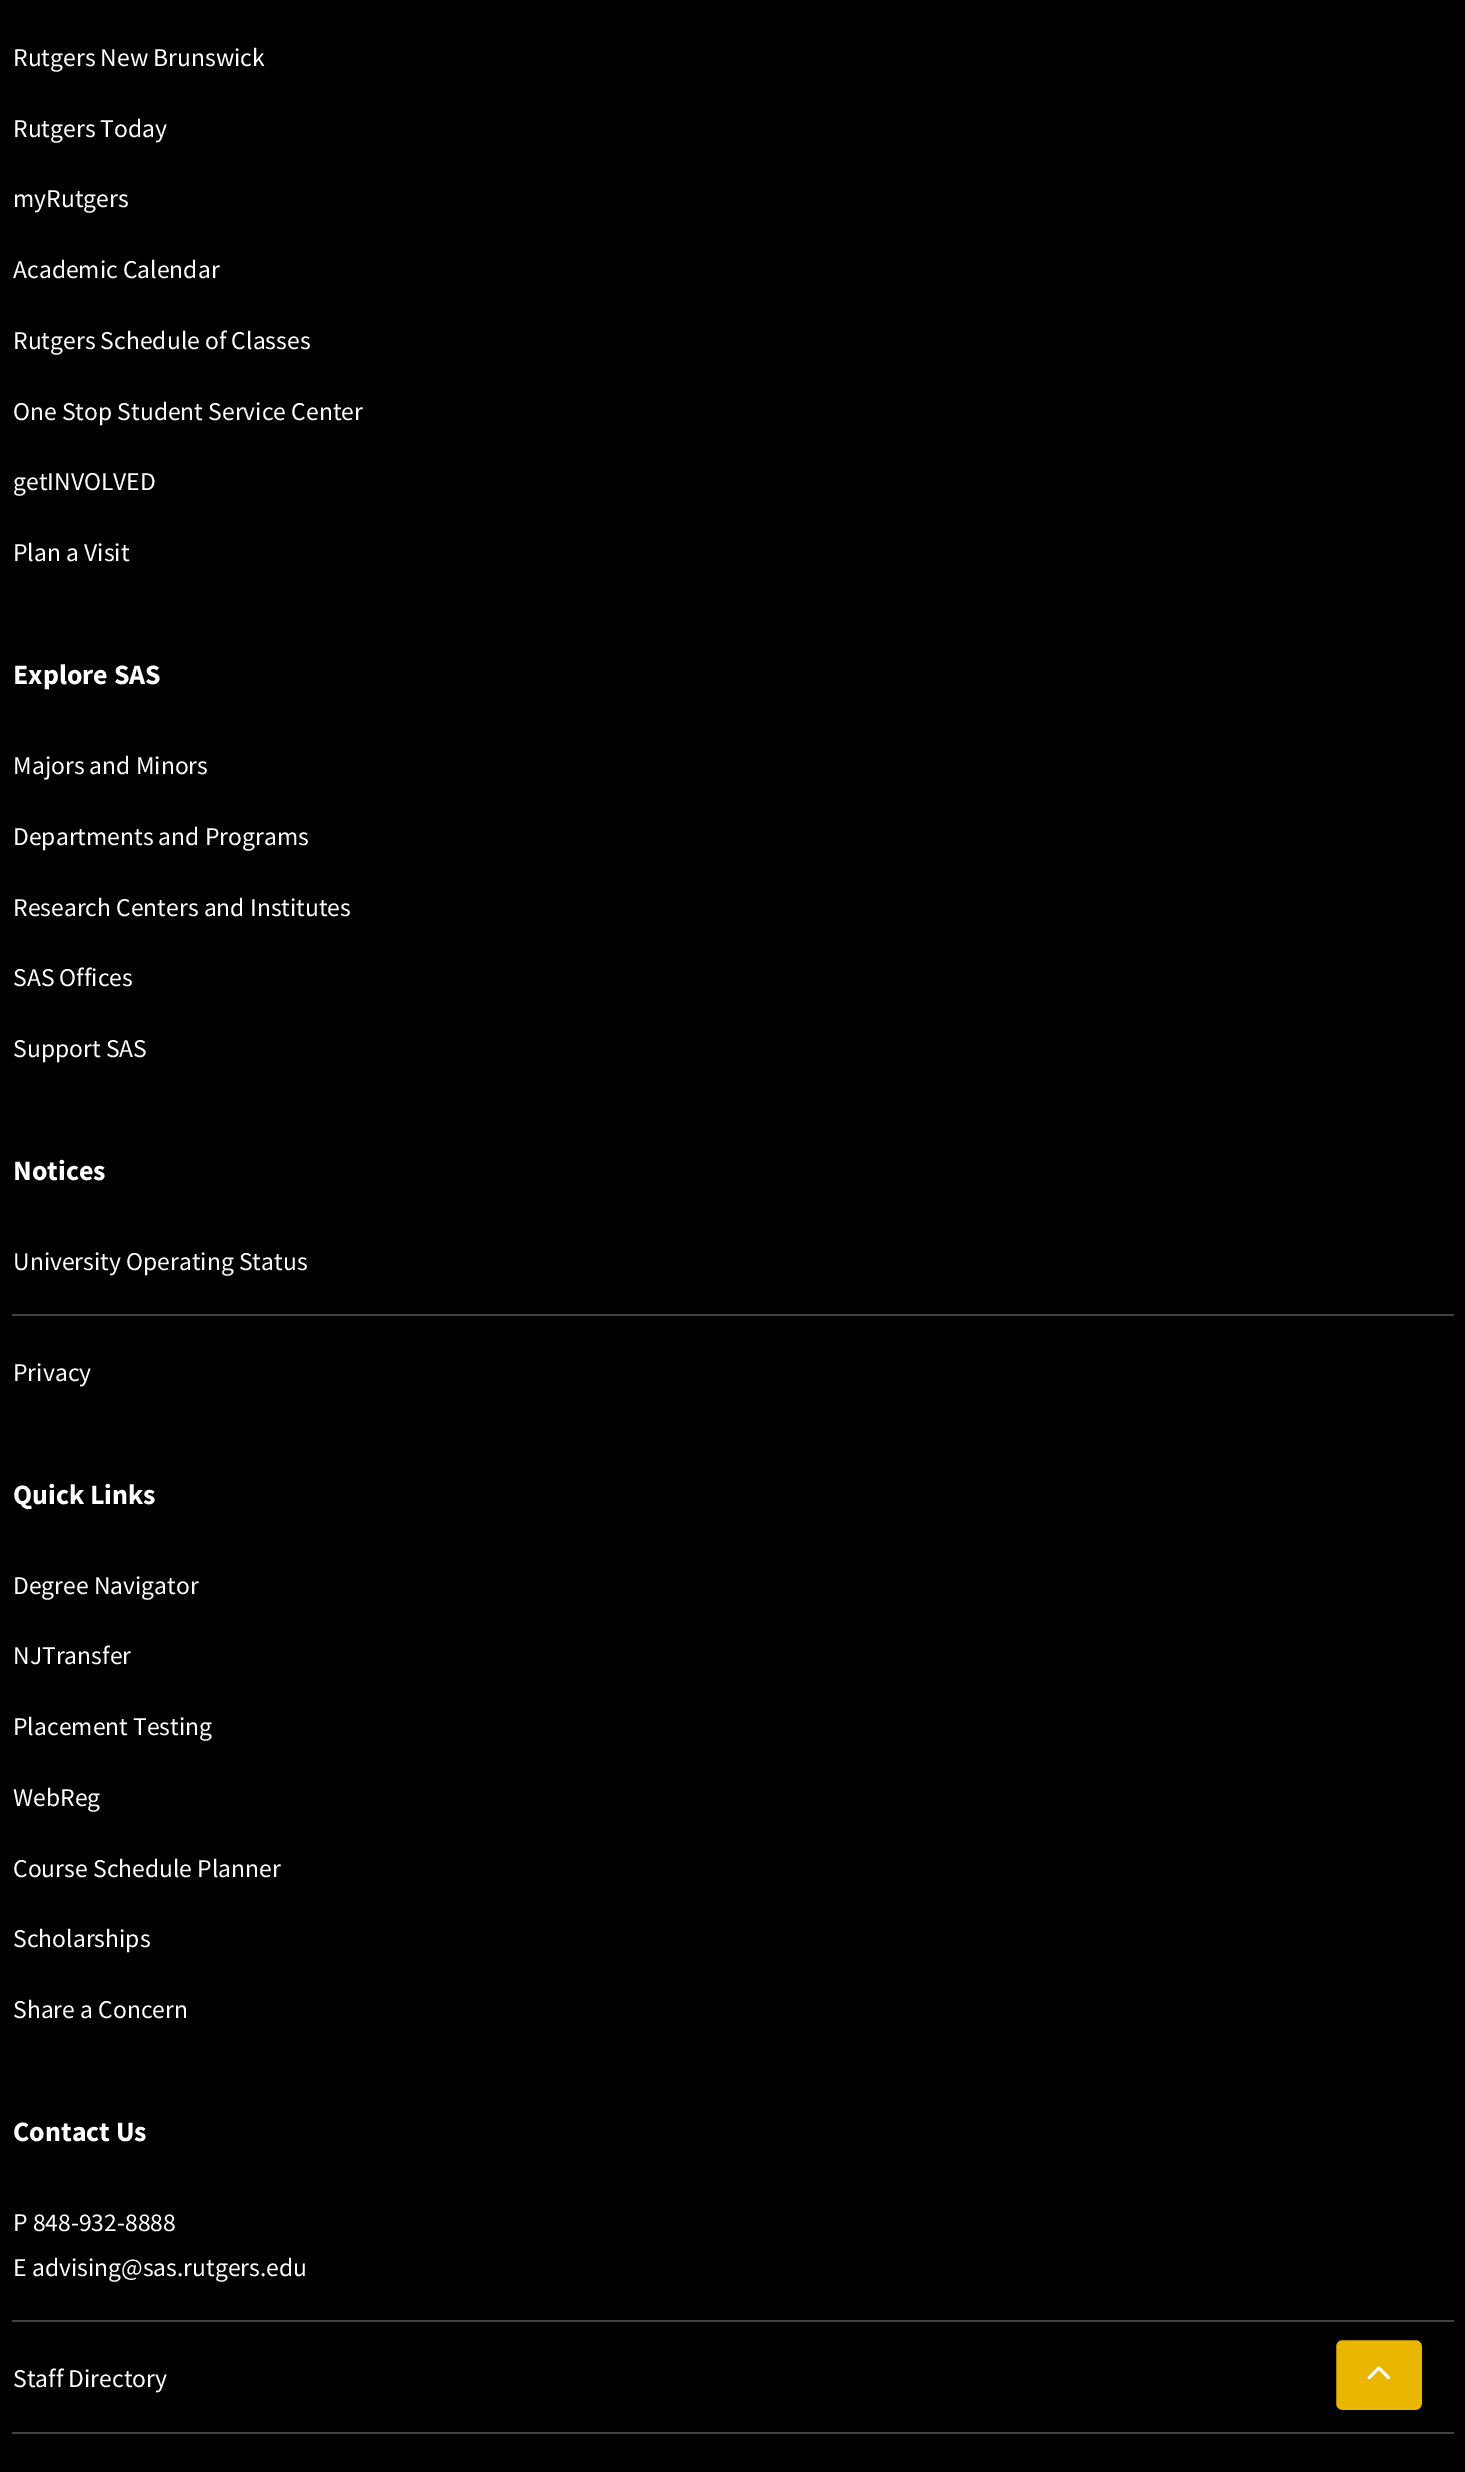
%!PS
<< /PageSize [1465 2472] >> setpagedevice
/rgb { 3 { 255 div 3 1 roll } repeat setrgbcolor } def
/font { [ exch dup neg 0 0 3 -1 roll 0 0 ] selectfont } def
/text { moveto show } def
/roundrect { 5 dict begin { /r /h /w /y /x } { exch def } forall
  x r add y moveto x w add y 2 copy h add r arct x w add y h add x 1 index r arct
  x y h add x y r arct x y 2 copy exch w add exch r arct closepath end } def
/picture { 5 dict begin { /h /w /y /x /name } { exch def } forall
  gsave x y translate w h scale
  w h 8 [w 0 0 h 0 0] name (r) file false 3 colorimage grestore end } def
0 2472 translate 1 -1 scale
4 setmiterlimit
0 0 0 rgb
0 0 1465 2472 rectfill
64 64 64 rgb
12 1314 1442 2 rectfill
12 2320 1442 2 rectfill
12 2432 1442 2 rectfill
235 182 0 rgb
1335 2339 88 72 7 roundrect gsave fill grestore
0 0 0 rgb
2 setlinewidth
stroke
(img_01.rgb) 1367 2366 23 14 picture
/SourceSansPro-Regular 25.6 font
255 255 255 rgb
(Rutgers New Brunswick) 13 66 text
(Rutgers Today) 13 137 text
(myRutgers) 13 207 text
(Academic Calendar) 13 278 text
(Rutgers Schedule of Classes) 13 349 text
(One Stop Student Service Center) 13 420 text
(getINVOLVED) 13 490 text
(Plan a Visit) 13 561 text
/SourceSansPro-Bold 28 font
(Explore SAS) 13 684 text
/SourceSansPro-Regular 25.6 font
(Majors and Minors) 13 774 text
(Departments and Programs) 13 845 text
(Research Centers and Institutes) 13 916 text
(SAS Offices) 13 986 text
(Support SAS) 13 1057 text
/SourceSansPro-Bold 28 font
(Notices) 13 1180 text
/SourceSansPro-Regular 25.6 font
(University Operating Status) 13 1270 text
(Privacy) 13 1381 text
/SourceSansPro-Bold 28 font
(Quick Links) 13 1504 text
/SourceSansPro-Regular 25.6 font
(Degree Navigator) 13 1594 text
(NJTransfer) 13 1664 text
(Placement Testing) 13 1735 text
(WebReg) 13 1806 text
(Course Schedule Planner) 13 1877 text
(Scholarships) 13 1947 text
(Share a Concern) 13 2018 text
/SourceSansPro-Bold 28 font
(Contact Us) 13 2141 text
/SourceSansPro-Regular 25.6 font
(P 848-932-8888) 13 2231 text
(E advising@sas.rutgers.edu) 13 2276 text
(Staff Directory) 13 2387 text
showpage
